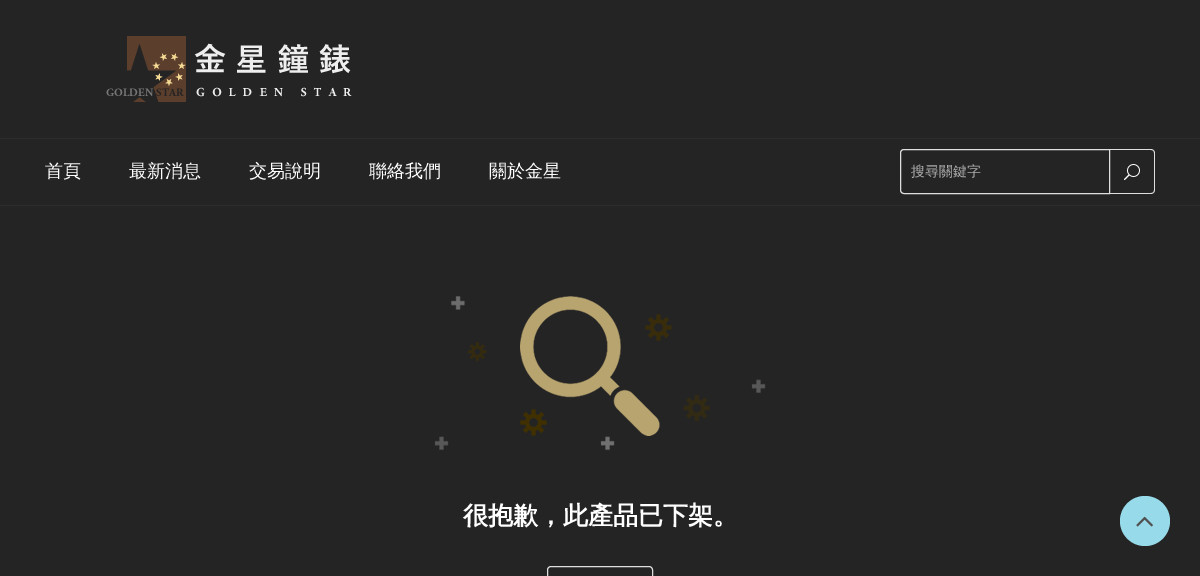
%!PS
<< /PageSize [1200 576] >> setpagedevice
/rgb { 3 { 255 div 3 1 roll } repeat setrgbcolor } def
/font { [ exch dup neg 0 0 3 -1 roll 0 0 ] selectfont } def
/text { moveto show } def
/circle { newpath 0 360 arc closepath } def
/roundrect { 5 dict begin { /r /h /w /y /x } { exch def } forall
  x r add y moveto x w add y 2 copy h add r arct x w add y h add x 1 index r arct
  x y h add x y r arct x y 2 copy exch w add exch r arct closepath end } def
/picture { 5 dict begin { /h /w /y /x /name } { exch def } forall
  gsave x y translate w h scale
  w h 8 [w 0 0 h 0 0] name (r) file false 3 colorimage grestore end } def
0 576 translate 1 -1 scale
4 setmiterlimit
36 36 36 rgb
0 0 1200 576 rectfill
45 45 45 rgb
0 138 1200 1 rectfill
(img_01.rgb) 106 36 246 66 picture
0 205 1200 1 rectfill
222 222 222 rgb
904 149.5 moveto 205.5 0 rlineto 0 44 rlineto -205.5 0 rlineto -2 0 -3.5 -1.5 -3.5 -3.5 rcurveto 0 -37 rlineto 0 -2 1.5 -3.5 3.5 -3.5 rcurveto closepath stroke
1110 149 moveto 41 0 rlineto 2 0 4 2 4 4 rcurveto 0 37 rlineto 0 2 -2 4 -4 4 rcurveto -41 0 rlineto closepath 1110 150 moveto 41 0 rlineto 2 0 3 1 3 3 rcurveto 0 37 rlineto 0 2 -1 3 -3 3 rcurveto -41 0 rlineto closepath eofill
(img_02.rgb) 1124 164 16 16 picture
(img_03.rgb) 434 296 332 155 picture
547.5 566.5 105 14 3.5 roundrect stroke
151 219 235 rgb
1145 521 25 circle fill
(img_04.rgb) 1136 516 17 11 picture
/WenQuanYiZenHei-Medium 18 font
255 255 255 rgb
(首頁) 45 177 text
(最新消息) 129 177 text
(交易說明) 249 177 text
(聯絡我們) 369 177 text
(關於金星) 489 177 text
/WenQuanYiZenHei-Medium 14 font
175 175 175 rgb
(搜尋關鍵字) 911 176 text
/WenQuanYiZenHei-Bold 25 font
255 255 255 rgb
(很抱歉，此產品已下架。) 463 524 text
showpage
